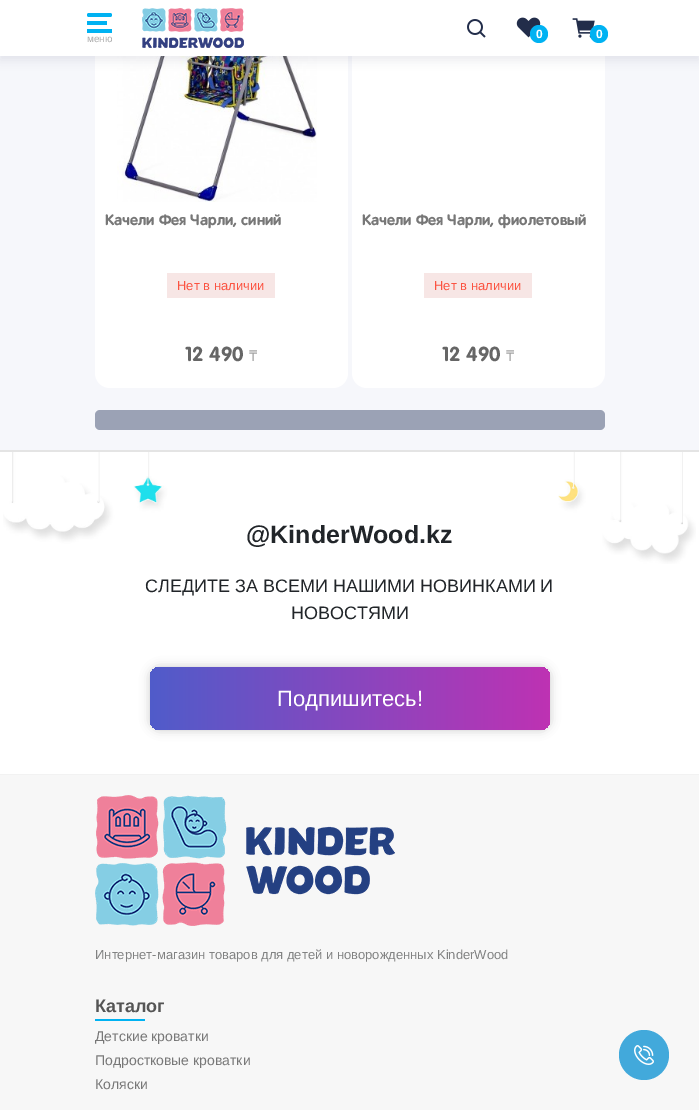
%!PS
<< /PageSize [699 1110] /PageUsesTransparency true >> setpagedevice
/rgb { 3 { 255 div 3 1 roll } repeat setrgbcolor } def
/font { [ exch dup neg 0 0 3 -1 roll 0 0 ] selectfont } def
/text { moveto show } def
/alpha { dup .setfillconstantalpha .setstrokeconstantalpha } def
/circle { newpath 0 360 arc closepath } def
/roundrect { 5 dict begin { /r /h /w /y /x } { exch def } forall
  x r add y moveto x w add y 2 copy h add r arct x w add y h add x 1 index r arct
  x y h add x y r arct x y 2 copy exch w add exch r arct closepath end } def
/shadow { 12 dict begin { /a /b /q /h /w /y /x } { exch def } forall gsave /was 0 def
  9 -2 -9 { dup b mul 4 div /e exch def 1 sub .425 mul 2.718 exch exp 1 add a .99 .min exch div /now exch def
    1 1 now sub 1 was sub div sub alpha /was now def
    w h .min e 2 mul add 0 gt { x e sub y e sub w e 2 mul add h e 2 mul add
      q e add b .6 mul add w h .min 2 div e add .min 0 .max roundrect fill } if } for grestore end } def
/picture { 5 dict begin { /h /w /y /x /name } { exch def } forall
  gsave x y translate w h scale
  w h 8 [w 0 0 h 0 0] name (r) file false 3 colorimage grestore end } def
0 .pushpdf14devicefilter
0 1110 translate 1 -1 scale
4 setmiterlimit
255 255 255 rgb
0 0 699 1110 rectfill
246 247 251 rgb
0 56 699 394 rectfill
255 255 255 rgb
95 -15 253 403 15 roundrect fill
(img_05.rgb) 117 56 200 146 picture
352 -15 253 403 15 roundrect fill
34 45 74 rgb
0 4 699 56 0 5 0.1 shadow
255 255 255 rgb
0 0 699 56 rectfill
0 178 242 rgb
87 13 25 4 2 roundrect fill
87 21 20 4 rectfill
87 29 25 4 rectfill
(img_01.rgb) 142 8 102 40 picture
(img_02.rgb) 467 19 19 19 picture
(img_03.rgb) 516 17 25 21 picture
539 34 9 circle fill
(img_04.rgb) 572 18 23 20 picture
599 34 9 circle fill
247 230 229 rgb
167 273 108 25 rectfill
424 273 108 25 rectfill
155 162 181 rgb
95 410 510 20 5 roundrect fill
(img_06.rgb) 3 452 693 112 picture
228 228 228 rgb
0 450 699 2 rectfill
0 0 0 rgb
150 667 400 63 10 5 0.2 shadow
gsave 150 667 400 63 10 roundrect clip newpath
<< /ShadingType 2 /ColorSpace /DeviceRGB /Coords [150 699 550 699] /Extend [true true] /Function << /FunctionType 2 /Domain [0 1] /C0 [0.314 0.361 0.792] /C1 [0.745 0.196 0.702] /N 1 >> >> shfill grestore
247 247 247 rgb
0 775 699 335 rectfill
242 242 242 rgb
0 774 699 1 rectfill
(img_07.rgb) 95 795 300 131 picture
0 178 242 rgb
95 1019 50 2 rectfill
66 169 219 rgb
644 1055 25 circle fill
(img_08.rgb) 634 1045 20 20 picture
/LiberationSans-Regular 10 font
171 171 171 rgb
(меню) 87 42 text
/LiberationSans-Bold 12 font
255 255 255 rgb
(0) 536 38 text
(0) 596 38 text
/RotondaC-Bold 15 font
119 119 119 rgb
(Качели Фея Чарли, синий) 105 225 text
/LiberationSans-Regular 13 font
251 83 65 rgb
(Нет в наличии) 177 290 text
/RotondaC-Bold 20 font
102 102 102 rgb
(12 490) 185 361 text
/NotoSans-Regular 15 font
161 161 161 rgb
(₸) 249 361 text
/RotondaC-Bold 15 font
119 119 119 rgb
(Качели Фея Чарли, фиолетовый) 362 225 text
/LiberationSans-Regular 13 font
251 83 65 rgb
(Нет в наличии) 434 290 text
/RotondaC-Bold 20 font
102 102 102 rgb
(12 490) 442 361 text
/NotoSans-Regular 15 font
161 161 161 rgb
(₸) 506 361 text
/LiberationSans-Bold 25 font
33 37 41 rgb
(@KinderWood.kz) 246 543 text
/LiberationSans-Regular 18 font
(СЛЕДИТЕ ЗА ВСЕМИ НАШИМИ НОВИНКАМИ И) 145 592 text
(НОВОСТЯМИ) 291 619 text
/LiberationSans-Regular 22 font
255 255 255 rgb
(Подпишитесь!) 277 706 text
/LiberationSans-Regular 13 font
129 130 130 rgb
(Интернет-магазин товаров для детей и новорожденных KinderWood) 95 959 text
/LiberationSans-Bold 18 font
85 85 85 rgb
(Каталог) 95 1012 text
/LiberationSans-Regular 14 font
119 119 119 rgb
(Детские кроватки) 95 1041 text
(Подростковые кроватки) 95 1065 text
(Коляски) 95 1089 text
.poppdf14devicefilter showpage
